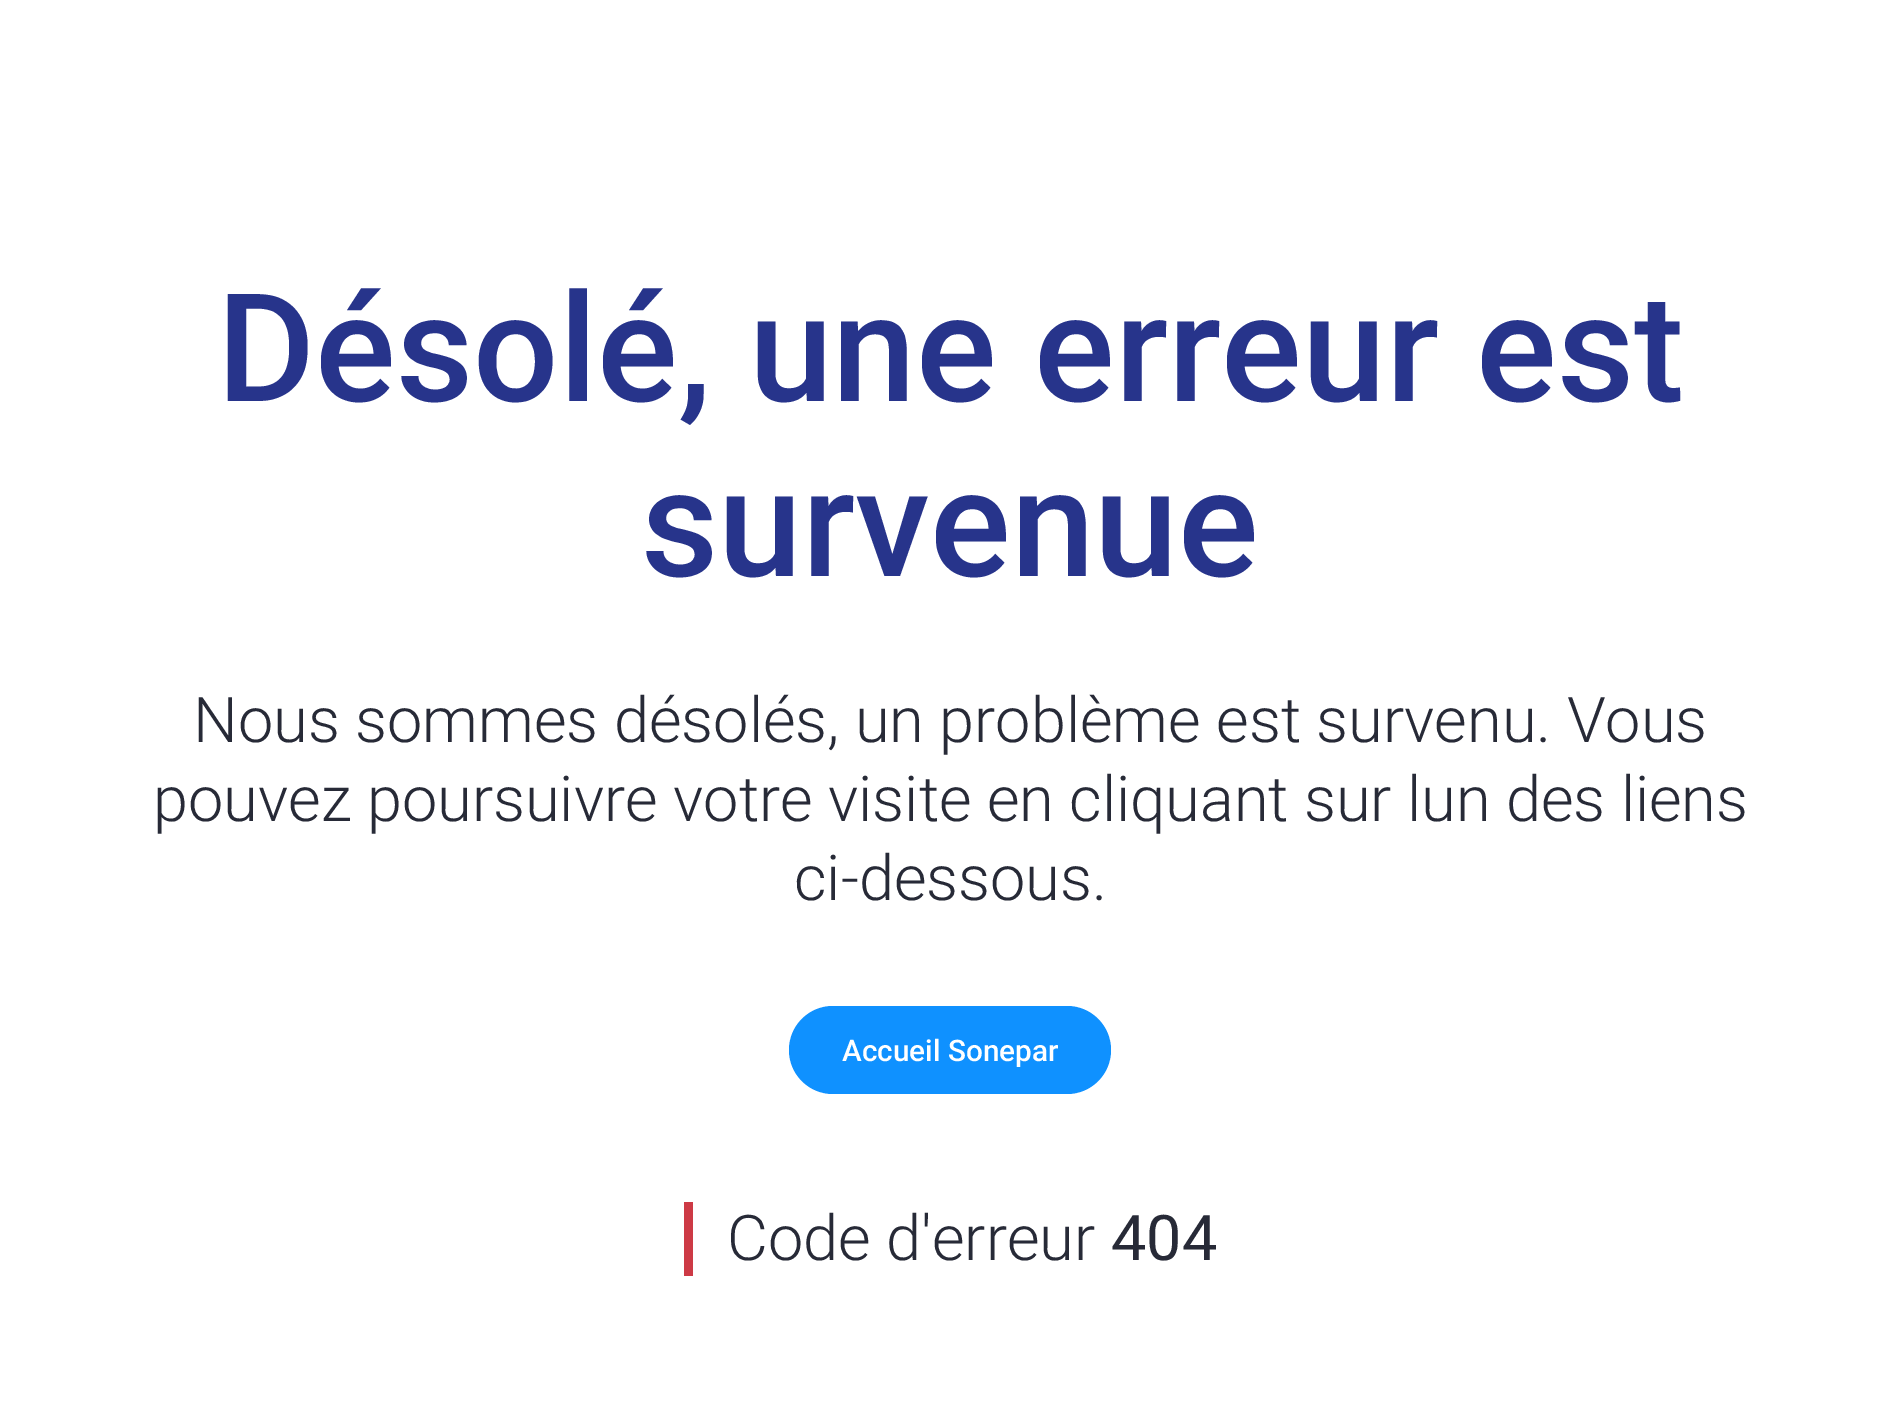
%!PS
<< /PageSize [1900 1419] >> setpagedevice
/rgb { 3 { 255 div 3 1 roll } repeat setrgbcolor } def
/font { [ exch dup neg 0 0 3 -1 roll 0 0 ] selectfont } def
/text { moveto show } def
/roundrect { 5 dict begin { /r /h /w /y /x } { exch def } forall
  x r add y moveto x w add y 2 copy h add r arct x w add y h add x 1 index r arct
  x y h add x y r arct x y 2 copy exch w add exch r arct closepath end } def
0 1419 translate 1 -1 scale
4 setmiterlimit
255 255 255 rgb
0 0 1900 1419 rectfill
15 145 255 rgb
789 1006 322 88 44 roundrect fill
205 58 69 rgb
684 1202 9 74 rectfill
/Roboto-Medium 150.5 font
39 52 139 rgb
(Désolé, une erreur est) 217 401 text
(survenue) 641 576 text
/Roboto-Light 63 font
39 42 55 rgb
(Nous sommes désolés, un problème est survenu. Vous) 193 742 text
(pouvez poursuivre votre visite en cliquant sur lun des liens) 153 821 text
(ci-dessous.) 794 900 text
/Roboto-Medium 29.75 font
255 255 255 rgb
(Accueil Sonepar) 842 1061 text
/Roboto-Light 63 font
39 42 55 rgb
(Code d'erreur) 727 1260 text
/Roboto-Regular 63 font
(404) 1111 1260 text
showpage
